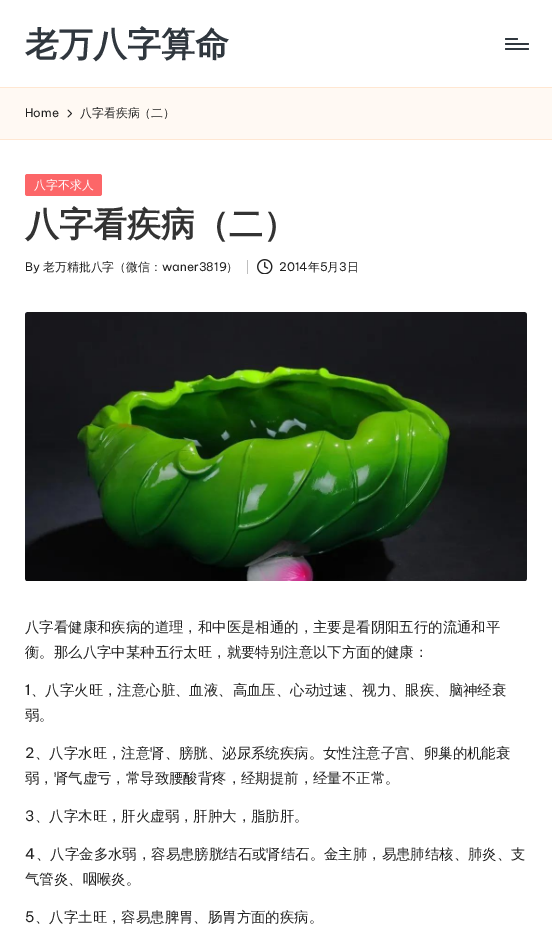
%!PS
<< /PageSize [552 927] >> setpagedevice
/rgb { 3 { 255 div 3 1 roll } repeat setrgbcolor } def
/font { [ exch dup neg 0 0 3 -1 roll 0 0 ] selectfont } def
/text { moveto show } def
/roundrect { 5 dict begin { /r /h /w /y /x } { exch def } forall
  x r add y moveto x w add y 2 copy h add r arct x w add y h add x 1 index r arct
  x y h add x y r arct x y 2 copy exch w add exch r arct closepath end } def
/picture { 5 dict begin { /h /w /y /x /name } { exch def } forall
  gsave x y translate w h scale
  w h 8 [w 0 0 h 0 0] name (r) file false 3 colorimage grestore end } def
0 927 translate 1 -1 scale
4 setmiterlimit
255 255 255 rgb
0 0 552 927 rectfill
48 55 62 rgb
505 43 24 2 1 roundrect fill
505 38 13 2 1 roundrect fill
505 48 24 2 1 roundrect fill
255 249 243 rgb
0 88 552 51 rectfill
255 231 210 rgb
0 87 552 1 rectfill
0 139 552 1 rectfill
(img_01.rgb) 67 109 5 9 picture
252 102 104 rgb
25 174 77 22 2.5 roundrect fill
191 191 191 rgb
247 260 1 14 rectfill
(img_02.rgb) 257 259 16 15 picture
(img_03.rgb) 25 312 502 269 picture
/WenQuanYiZenHei-Bold 34 font
48 55 62 rgb
(老万八字算命) 25 56 text
/BeVietnamPro-Regular 11.9 font
33 33 33 rgb
(Home) 25 117 text
/WenQuanYiZenHei-Medium 11.9 font
(八字看疾病（二）) 80 117 text
255 255 255 rgb
(八字不求人) 34 189 text
/WenQuanYiZenHei-Bold 34 font
51 51 51 rgb
(八字看疾病（二）) 25 236 text
/BeVietnamPro-Regular 11.9 font
33 33 33 rgb
(By) 25 271 text
/WenQuanYiZenHei-Medium 11.9 font
(老万精批八字（微信：) 43 271 text
/BeVietnamPro-Regular 11.9 font
(waner3819) 162 271 text
/WenQuanYiZenHei-Medium 11.9 font
(）) 226 271 text
/BeVietnamPro-Regular 11.9 font
(2014) 279 271 text
/WenQuanYiZenHei-Medium 11.9 font
(年) 308 271 text
/BeVietnamPro-Regular 11.9 font
(5) 320 271 text
/WenQuanYiZenHei-Medium 11.9 font
(月) 327 271 text
/BeVietnamPro-Regular 11.9 font
(3) 339 271 text
/WenQuanYiZenHei-Medium 11.9 font
(日) 347 271 text
/WenQuanYiZenHei-Medium 14.4 font
(八字看健康和疾病的道理，和中医是相通的，主要是看阴阳五行的流通和平) 25 632 text
(衡。那么八字中某种五行太旺，就要特别注意以下方面的健康：) 25 657 text
/BeVietnamPro-Regular 14.4 font
(1) 25 695 text
/WenQuanYiZenHei-Medium 14.4 font
(、八字火旺，注意心脏、血液、高血压、心动过速、视力、眼疾、脑神经衰) 31 695 text
(弱。) 25 720 text
/BeVietnamPro-Regular 14.4 font
(2) 25 758 text
/WenQuanYiZenHei-Medium 14.4 font
(、八字水旺，注意肾、膀胱、泌尿系统疾病。女性注意子宫、卵巢的机能衰) 35 758 text
(弱，肾气虚亏，常导致腰酸背疼，经期提前，经量不正常。) 25 783 text
/BeVietnamPro-Regular 14.4 font
(3) 25 821 text
/WenQuanYiZenHei-Medium 14.4 font
(、八字木旺，肝火虚弱，肝肿大，脂肪肝。) 35 821 text
/BeVietnamPro-Regular 14.4 font
(4) 25 859 text
/WenQuanYiZenHei-Medium 14.4 font
(、八字金多水弱，容易患膀胱结石或肾结石。金主肺，易患肺结核、肺炎、支) 36 859 text
(气管炎、咽喉炎。) 25 884 text
/BeVietnamPro-Regular 14.4 font
(5) 25 922 text
/WenQuanYiZenHei-Medium 14.4 font
(、八字土旺，容易患脾胃、肠胃方面的疾病。) 35 922 text
showpage
